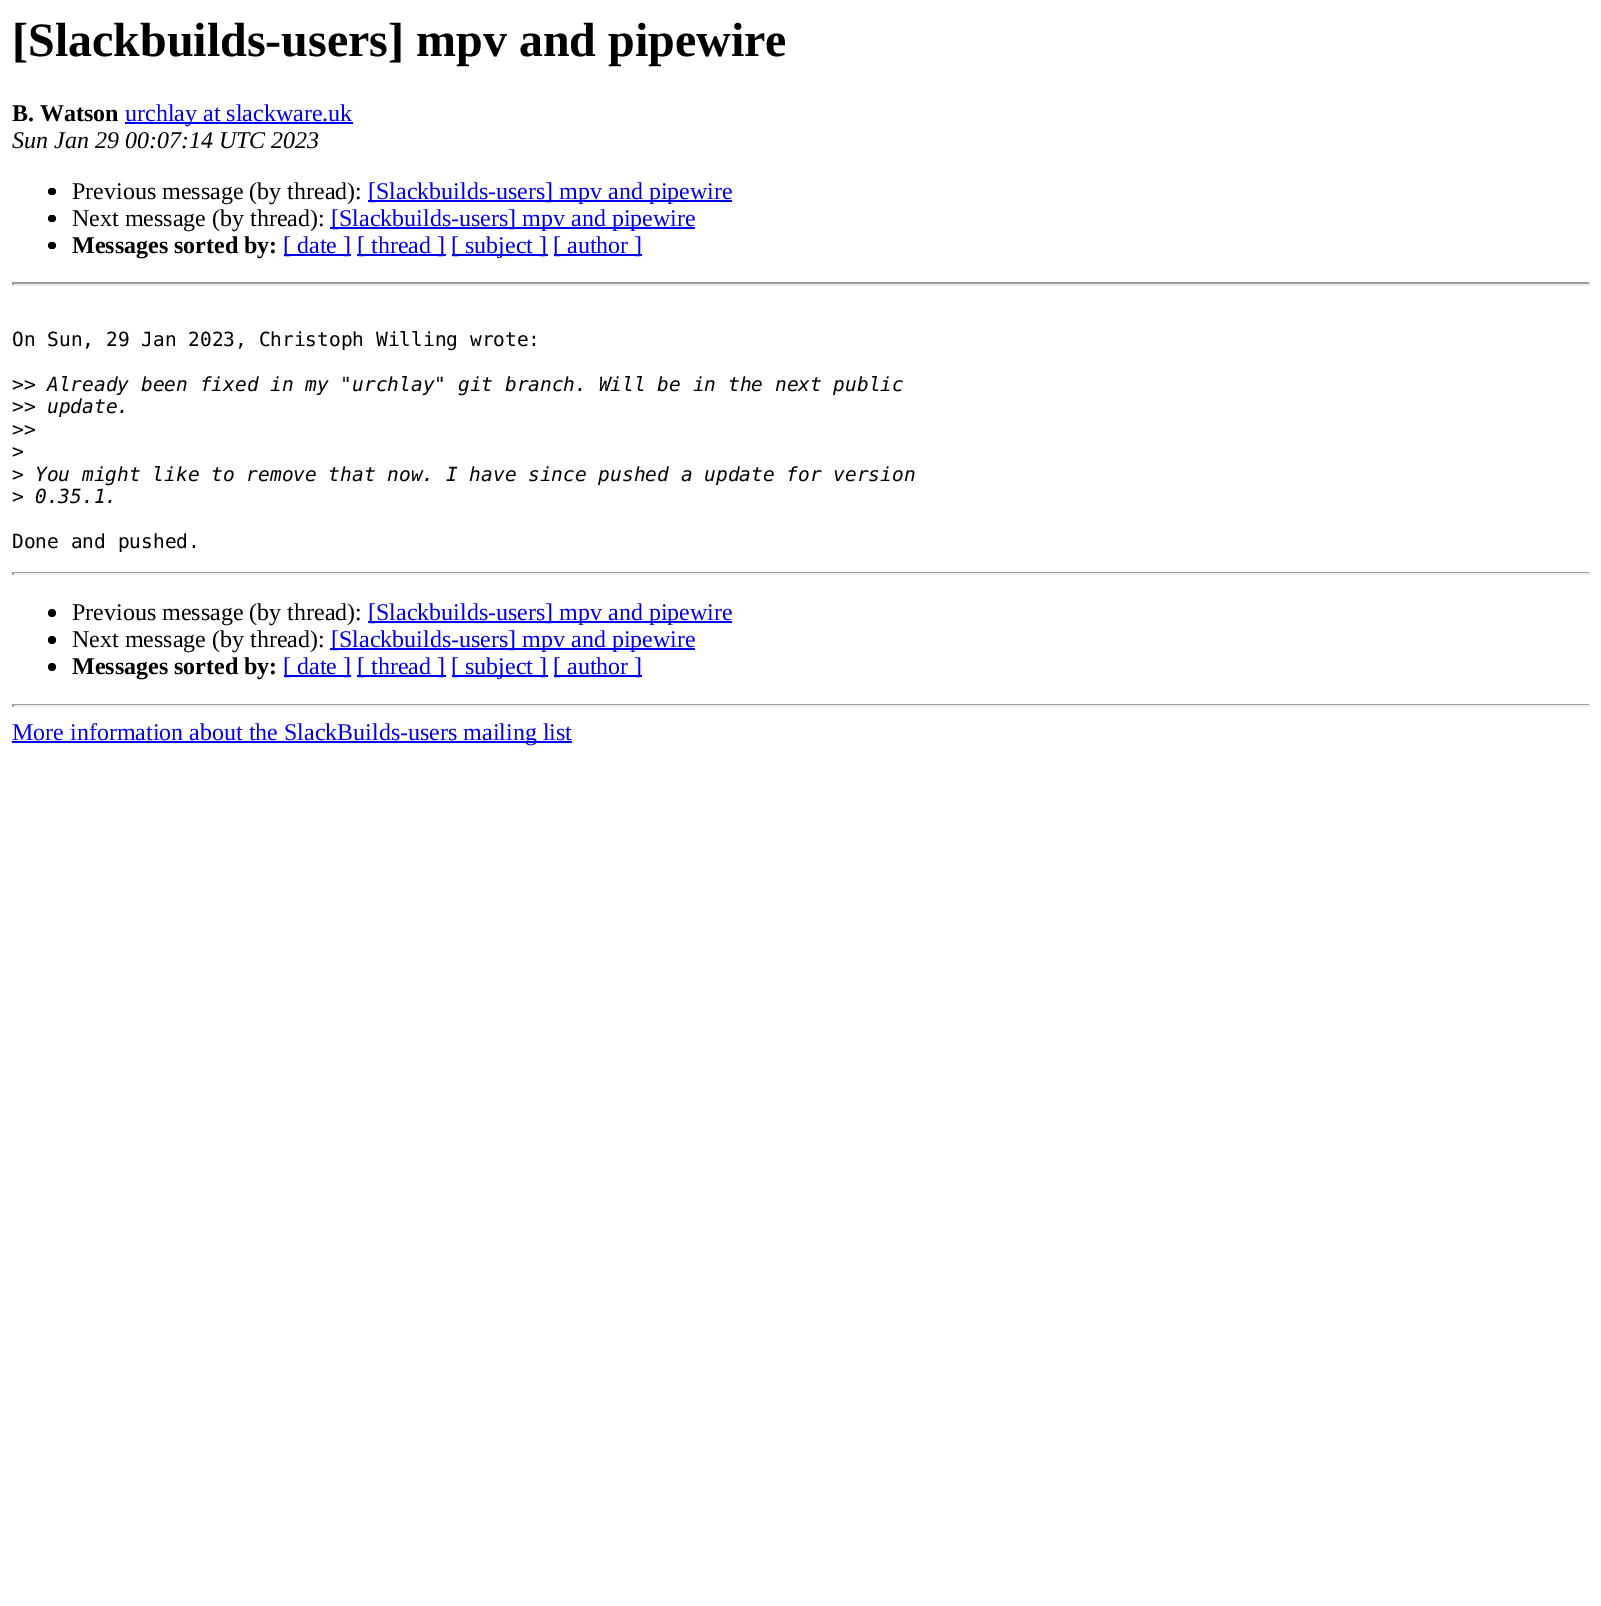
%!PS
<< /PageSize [1601 1606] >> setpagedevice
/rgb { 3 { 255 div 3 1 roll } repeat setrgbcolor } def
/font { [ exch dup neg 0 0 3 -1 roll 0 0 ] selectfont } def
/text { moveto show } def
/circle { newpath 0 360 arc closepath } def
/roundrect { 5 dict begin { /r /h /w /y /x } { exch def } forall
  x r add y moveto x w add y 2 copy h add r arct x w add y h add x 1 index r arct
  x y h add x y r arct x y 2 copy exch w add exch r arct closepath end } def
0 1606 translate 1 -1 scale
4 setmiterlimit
255 255 255 rgb
0 0 1601 1606 rectfill
0 0 238 rgb
125 122 228 2 rectfill
0 0 0 rgb
48 188 8 7 3.5 roundrect fill
0 0 238 rgb
368 200 364 2 rectfill
0 0 0 rgb
48 215 8 7 3.5 roundrect fill
0 0 238 rgb
330 227 365 2 rectfill
0 0 0 rgb
48 242 8 7 3.5 roundrect fill
0 0 238 rgb
284 254 67 2 rectfill
357 254 89 2 rectfill
452 254 96 2 rectfill
554 254 88 2 rectfill
159 159 159 rgb
12 282 1578 2 rectfill
238 238 238 rgb
1589 282 2 3 rectfill
12 284 1578 2 rectfill
159 159 159 rgb
12 282 2 3 rectfill
12 572 1578 1 rectfill
238 238 238 rgb
1589 572 2 3 rectfill
12 573 1578 2 rectfill
159 159 159 rgb
12 572 2 3 rectfill
0 0 0 rgb
52 613 4 circle fill
0 0 238 rgb
368 621 364 2 rectfill
0 0 0 rgb
52 640 4 circle fill
0 0 238 rgb
330 648 365 2 rectfill
0 0 0 rgb
52 667 4 circle fill
0 0 238 rgb
284 675 67 2 rectfill
357 675 89 2 rectfill
452 675 96 2 rectfill
554 675 88 2 rectfill
159 159 159 rgb
12 704 1578 1 rectfill
238 238 238 rgb
1589 704 2 3 rectfill
12 705 1578 2 rectfill
159 159 159 rgb
12 704 2 3 rectfill
0 0 238 rgb
12 741 560 2 rectfill
/LiberationSerif-Bold 48 font
0 0 0 rgb
([Slackbuilds-users] mpv and pipewire) 12 56 text
/LiberationSerif-Bold 24 font
(B. Watson) 12 121 text
/LiberationSerif-Regular 24 font
0 0 238 rgb
(urchlay at slackware.uk) 125 121 text
/LiberationSerif-Italic 24 font
0 0 0 rgb
(Sun Jan 29 00:07:14 UTC 2023) 12 148 text
/LiberationSerif-Regular 24 font
(Previous message \(by thread\):) 72 199 text
0 0 238 rgb
([Slackbuilds-users] mpv and pipewire) 368 199 text
0 0 0 rgb
(Next message \(by thread\):) 72 226 text
0 0 238 rgb
([Slackbuilds-users] mpv and pipewire) 331 226 text
/LiberationSerif-Bold 24 font
0 0 0 rgb
(Messages sorted by:) 72 253 text
/LiberationSerif-Regular 24 font
0 0 238 rgb
([ date ]) 283 253 text
([ thread ]) 357 253 text
([ subject ]) 451 253 text
([ author ]) 553 253 text
/DejaVuSansMono-Regular 19.5 font
0 0 0 rgb
(On Sun, 29 Jan 2023, Christoph Willing wrote:) 12 346 text
(>>) 12 391 text
/DejaVuSansMono-Italic 19.5 font
(Already been fixed in my "urchlay" git branch. Will be in the next public) 47 391 text
/DejaVuSansMono-Regular 19.5 font
(>>) 12 413 text
/DejaVuSansMono-Italic 19.5 font
(update.) 47 413 text
/DejaVuSansMono-Regular 19.5 font
(>>) 12 436 text
(>) 12 458 text
(>) 12 481 text
/DejaVuSansMono-Italic 19.5 font
(You might like to remove that now. I have since pushed a update for version) 35 481 text
/DejaVuSansMono-Regular 19.5 font
(>) 12 503 text
/DejaVuSansMono-Italic 19.5 font
(0.35.1.) 35 503 text
/DejaVuSansMono-Regular 19.5 font
(Done and pushed.) 12 548 text
/LiberationSerif-Regular 24 font
(Previous message \(by thread\):) 72 620 text
0 0 238 rgb
([Slackbuilds-users] mpv and pipewire) 368 620 text
0 0 0 rgb
(Next message \(by thread\):) 72 647 text
0 0 238 rgb
([Slackbuilds-users] mpv and pipewire) 331 647 text
/LiberationSerif-Bold 24 font
0 0 0 rgb
(Messages sorted by:) 72 674 text
/LiberationSerif-Regular 24 font
0 0 238 rgb
([ date ]) 283 674 text
([ thread ]) 357 674 text
([ subject ]) 451 674 text
([ author ]) 553 674 text
(More information about the SlackBuilds-users mailing list) 12 740 text
showpage
